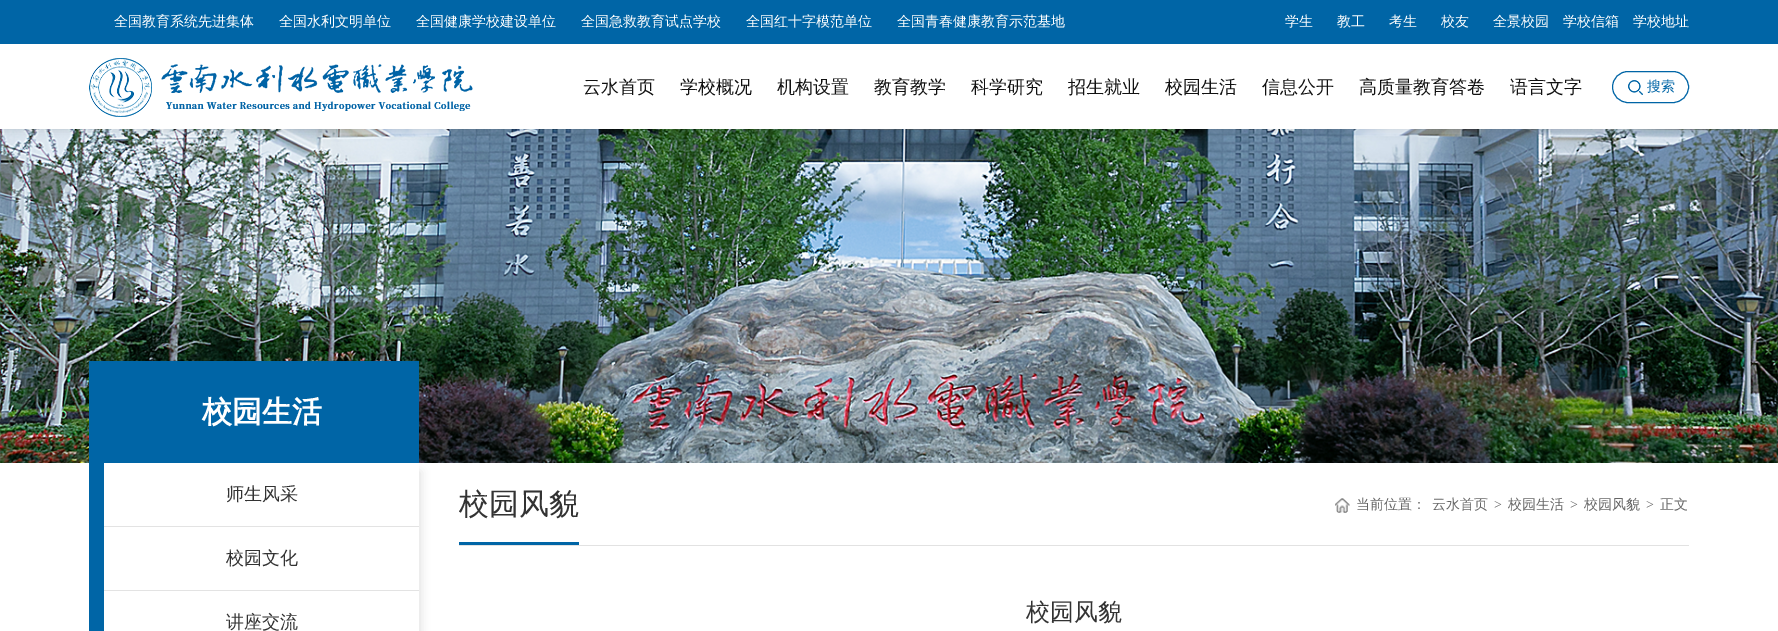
%!PS
<< /PageSize [1778 631] /PageUsesTransparency true >> setpagedevice
/rgb { 3 { 255 div 3 1 roll } repeat setrgbcolor } def
/font { [ exch dup neg 0 0 3 -1 roll 0 0 ] selectfont } def
/text { moveto show } def
/alpha { dup .setfillconstantalpha .setstrokeconstantalpha } def
/roundrect { 5 dict begin { /r /h /w /y /x } { exch def } forall
  x r add y moveto x w add y 2 copy h add r arct x w add y h add x 1 index r arct
  x y h add x y r arct x y 2 copy exch w add exch r arct closepath end } def
/shadow { 12 dict begin { /a /b /q /h /w /y /x } { exch def } forall gsave /was 0 def
  9 -2 -9 { dup b mul 4 div /e exch def 1 sub .425 mul 2.718 exch exp 1 add a .99 .min exch div /now exch def
    1 1 now sub 1 was sub div sub alpha /was now def
    w h .min e 2 mul add 0 gt { x e sub y e sub w e 2 mul add h e 2 mul add
      q e add b .6 mul add w h .min 2 div e add .min 0 .max roundrect fill } if } for grestore end } def
/picture { 5 dict begin { /h /w /y /x /name } { exch def } forall
  gsave x y translate w h scale
  w h 8 [w 0 0 h 0 0] name (r) file false 3 colorimage grestore end } def
0 .pushpdf14devicefilter
0 631 translate 1 -1 scale
4 setmiterlimit
255 255 255 rgb
0 0 1778 631 rectfill
(img_03.rgb) 0 129 1778 334 picture
0 0 0 rgb
0 0 1778 129 0 5 0.15 shadow
0 101 166 rgb
0 0 1778 44 rectfill
255 255 255 rgb
0 44 1778 85 rectfill
(img_01.rgb) 89 58 384 59 picture
0 101 166 rgb
1612.5 71.5 76 31 15.5 roundrect stroke
(img_02.rgb) 1628 80 15 15 picture
89 361 330 270 rectfill
17 17 17 rgb
113 472 307 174 0 5 0.15 shadow
255 255 255 rgb
104 463 315 168 rectfill
227 227 227 rgb
104 526 315 1 rectfill
104 590 315 1 rectfill
226 226 226 rgb
459 545 1230 1 rectfill
0 101 166 rgb
459 542 120 3 rectfill
(img_04.rgb) 1335 498 15 15 picture
/WenQuanYiZenHei-Medium 14 font
255 255 255 rgb
(全国教育系统先进集体) 114 26 text
(全国水利文明单位) 279 26 text
(全国健康学校建设单位) 416 26 text
(全国急救教育试点学校) 581 26 text
(全国红十字模范单位) 746 26 text
(全国青春健康教育示范基地) 897 26 text
(学生) 1285 26 text
(教工) 1337 26 text
(考生) 1389 26 text
(校友) 1441 26 text
(全景校园) 1493 26 text
(学校信箱) 1563 26 text
(学校地址) 1633 26 text
/WenQuanYiZenHei-Medium 18 font
17 17 17 rgb
(云水首页) 583 93 text
(学校概况) 680 93 text
(机构设置) 777 93 text
(教育教学) 874 93 text
(科学研究) 971 93 text
(招生就业) 1068 93 text
(校园生活) 1165 93 text
(信息公开) 1262 93 text
(高质量教育答卷) 1359 93 text
(语言文字) 1510 93 text
/WenQuanYiZenHei-Medium 14 font
0 101 166 rgb
(搜索) 1647 91 text
/WenQuanYiZenHei-Bold 30 font
255 255 255 rgb
(校园生活) 202 422 text
/WenQuanYiZenHei-Medium 18 font
51 51 51 rgb
(师生风采) 226 500 text
(校园文化) 226 564 text
(讲座交流) 226 628 text
/WenQuanYiZenHei-Medium 30 font
(校园风貌) 459 514 text
/WenQuanYiZenHei-Medium 14 font
102 102 102 rgb
(当前位置：) 1356 509 text
(云水首页) 1432 509 text
/LiberationSerif-Regular 14 font
(>) 1494 509 text
/WenQuanYiZenHei-Medium 14 font
(校园生活) 1508 509 text
/LiberationSerif-Regular 14 font
(>) 1570 509 text
/WenQuanYiZenHei-Medium 14 font
(校园风貌) 1584 509 text
/LiberationSerif-Regular 14 font
(>) 1646 509 text
/WenQuanYiZenHei-Medium 14 font
(正文) 1660 509 text
/WenQuanYiZenHei-Medium 24 font
51 51 51 rgb
(校园风貌) 1026 620 text
.poppdf14devicefilter showpage
